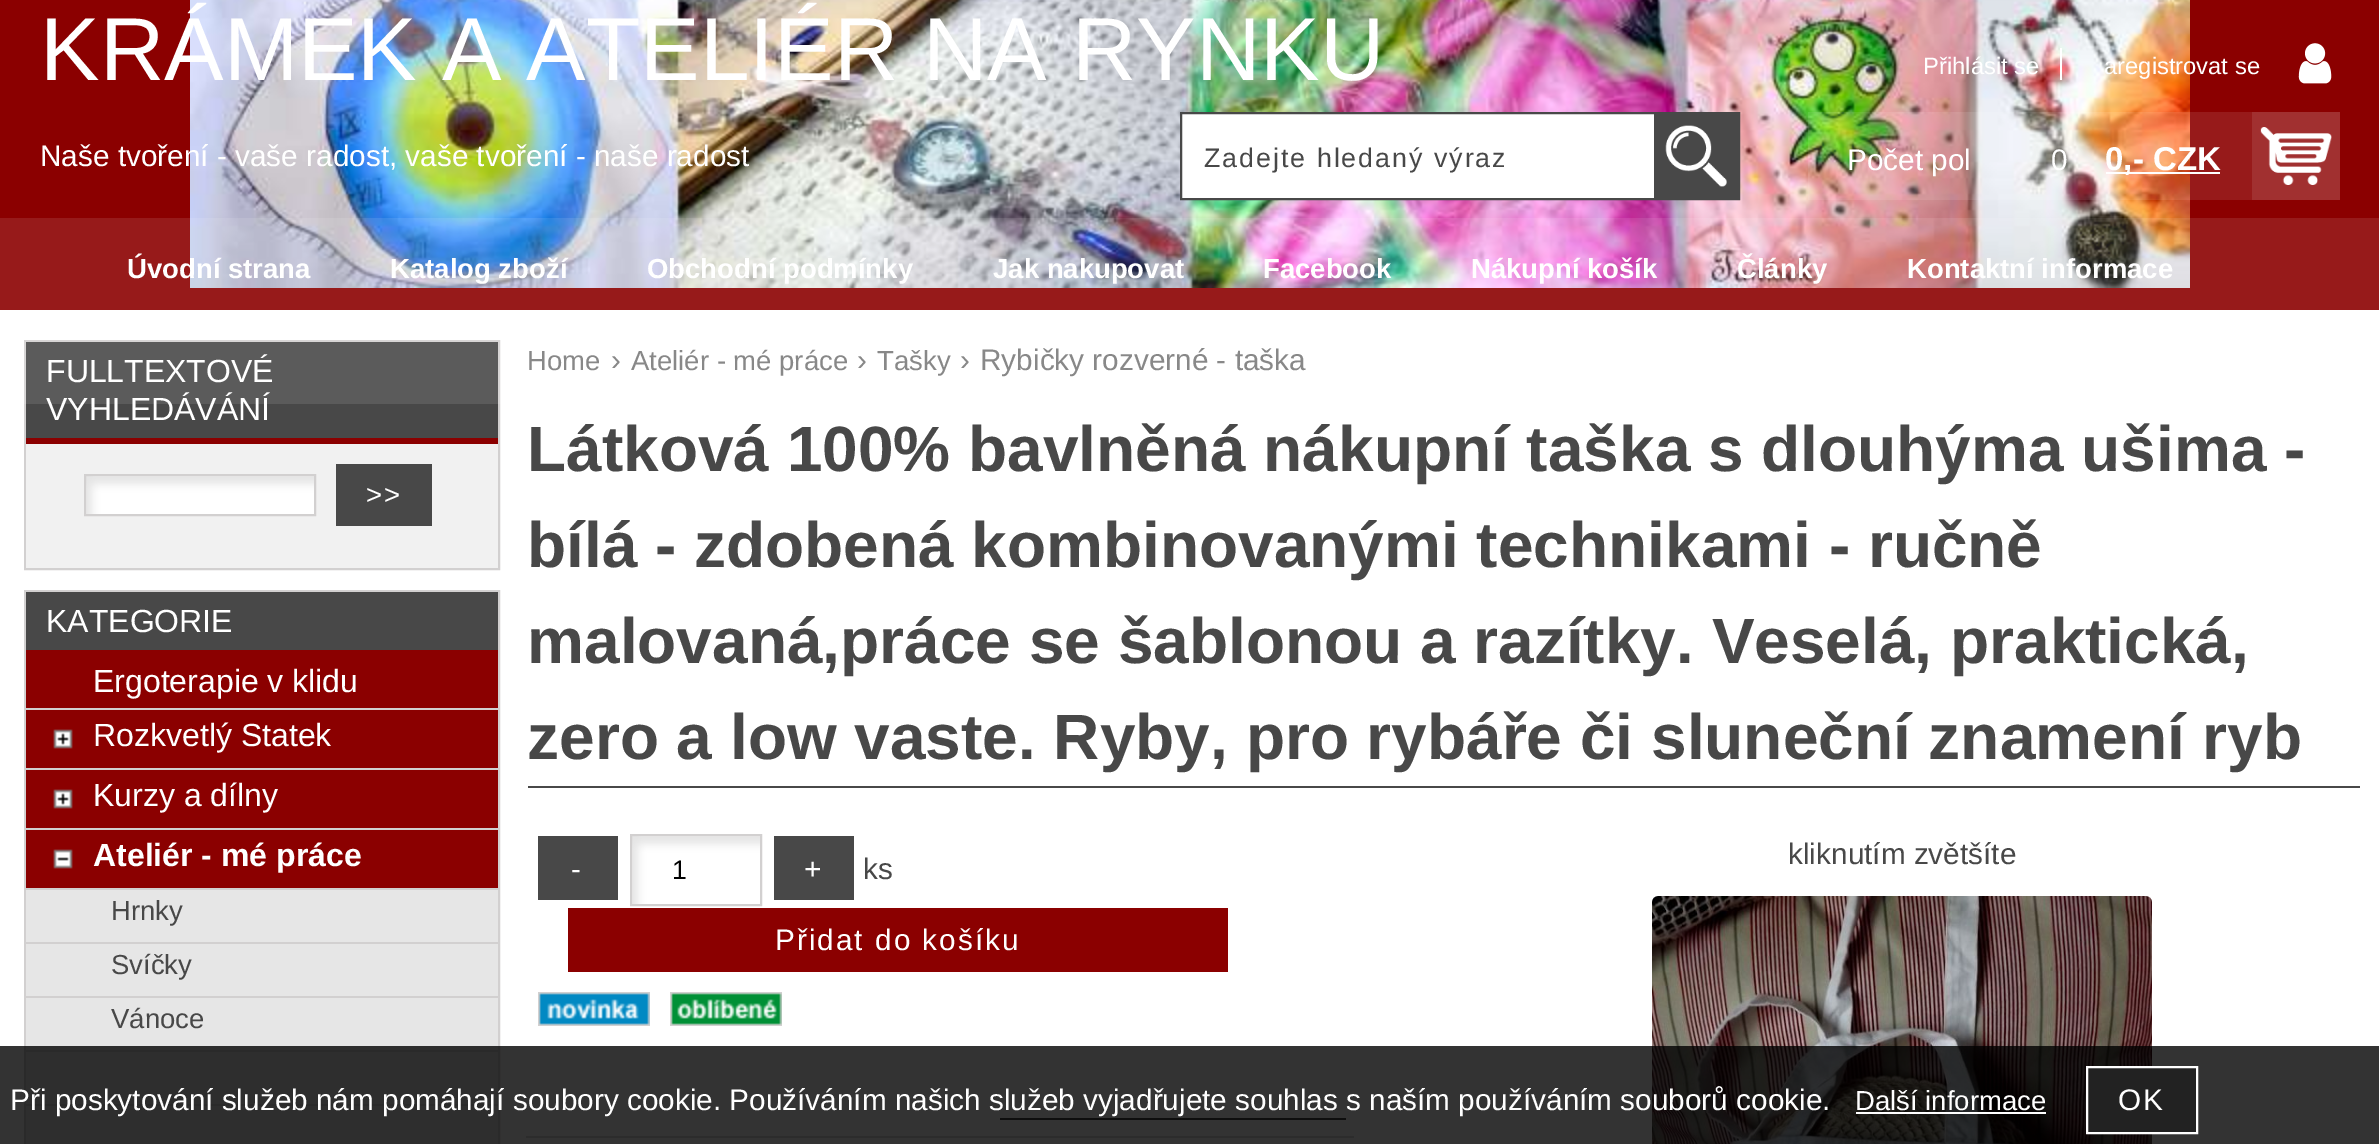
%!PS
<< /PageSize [2379 1144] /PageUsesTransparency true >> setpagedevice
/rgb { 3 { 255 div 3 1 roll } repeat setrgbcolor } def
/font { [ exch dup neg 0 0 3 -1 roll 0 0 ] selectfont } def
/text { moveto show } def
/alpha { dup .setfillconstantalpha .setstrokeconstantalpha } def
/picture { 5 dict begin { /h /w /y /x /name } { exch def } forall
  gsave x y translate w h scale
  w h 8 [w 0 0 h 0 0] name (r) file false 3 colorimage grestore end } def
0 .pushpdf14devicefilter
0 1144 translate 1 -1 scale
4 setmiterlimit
255 255 255 rgb
0 0 2379 1144 rectfill
139 0 0 rgb
0 0 2379 310 rectfill
(img_01.rgb) 190 0 2000 288 picture
255 255 255 rgb
2060 48 2 32 rectfill
(img_02.rgb) 2298 43 34 41 picture
1182 114 472 84 rectfill
72 72 72 rgb
2 setlinewidth
1181 113 558 86 rectstroke
1654 114 84 84 rectfill
(img_03.rgb) 1665 125 62 62 picture
0.1 alpha
255 255 255 rgb
1808 112 444 88 rectfill
1 alpha
2106 172 114 2 rectfill
161 48 48 rgb
2252 112 88 88 rectfill
(img_04.rgb) 2260 127 72 58 picture
210 208 208 rgb
25 341 474 228 rectstroke
72 72 72 rgb
26 342 472 96 rectfill
0.1 alpha
255 255 255 rgb
0 218 2379 186 rectfill
1 alpha
139 0 0 rgb
26 438 472 6 rectfill
241 241 241 rgb
26 444 472 124 rectfill
(img_05.rgb) 86 476 228 38 picture
210 208 208 rgb
85 475 230 40 rectstroke
72 72 72 rgb
336 464 96 62 rectfill
210 208 208 rgb
25 591 474 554 rectstroke
72 72 72 rgb
26 592 472 58 rectfill
139 0 0 rgb
26 650 472 58 rectfill
210 208 208 rgb
26 708 472 2 rectfill
139 0 0 rgb
26 710 472 58 rectfill
210 208 208 rgb
26 768 472 2 rectfill
(img_06.rgb) 53 729 20 20 picture
139 0 0 rgb
26 770 472 58 rectfill
210 208 208 rgb
26 828 472 2 rectfill
(img_06.rgb) 53 789 20 20 picture
139 0 0 rgb
26 830 472 58 rectfill
210 208 208 rgb
26 888 472 2 rectfill
(img_07.rgb) 53 849 20 20 picture
230 230 230 rgb
26 890 472 52 rectfill
210 208 208 rgb
26 942 472 2 rectfill
230 230 230 rgb
26 944 472 52 rectfill
210 208 208 rgb
26 996 472 2 rectfill
230 230 230 rgb
26 998 472 52 rectfill
210 208 208 rgb
26 1050 472 2 rectfill
230 230 230 rgb
26 1052 472 52 rectfill
210 208 208 rgb
26 1104 472 2 rectfill
230 230 230 rgb
26 1106 472 38 rectfill
72 72 72 rgb
528 786 1832 2 rectfill
(img_08.rgb) 1652 896 500 248 picture
538 836 80 64 rectfill
(img_09.rgb) 632 836 128 68 picture
210 208 208 rgb
631 835 130 70 rectstroke
72 72 72 rgb
774 836 80 64 rectfill
139 0 0 rgb
568 908 660 64 rectfill
(img_10.rgb) 538 992 112 34 picture
(img_11.rgb) 670 992 112 34 picture
221 221 221 rgb
526 1136 828 2 rectfill
72 72 72 rgb
1000 1118 346 2 rectfill
0.8 alpha
0 0 0 rgb
0 1046 2379 98 rectfill
1 alpha
255 255 255 rgb
1856 1112 190 2 rectfill
34 34 34 rgb
2087 1067 moveto 110 0 rlineto 0 66 rlineto -110 0 rlineto closepath gsave fill grestore
255 255 255 rgb
stroke
/LiberationSans-Regular 89.25 font
(KRÁMEK A ATELIÉR NA RYNKU) 40 80 text
/LiberationSans-Regular 23.75 font
(Přihlásit se) 1923 74 text
(aregistrovat se) 2104 74 text
/LiberationSans-Regular 29.75 font
(Naše tvoření - vaše radost, vaše tvoření - naše radost) 40 166 text
/LiberationSans-Regular 26.75 font
72 72 72 rgb
1204 167 moveto 2 0 (Zadejte hledaný výraz) ashow
/LiberationSans-Regular 29.75 font
255 255 255 rgb
(Počet pol) 1847 170 text
(0) 2051 170 text
/LiberationSans-Bold 33 font
(0,- CZK) 2105 170 text
/LiberationSans-Bold 27.5 font
(Úvodní strana) 127 278 text
(Katalog zboží) 390 278 text
(Obchodní podmínky) 647 278 text
(Jak nakupovat) 993 278 text
(Facebook) 1263 278 text
(Nákupní košík) 1471 278 text
(Články) 1737 278 text
(Kontaktní informace) 1907 278 text
/LiberationSans-Regular 32 font
(FULLTEXTOVÉ) 46 382 text
(VYHLEDÁVÁNÍ) 46 420 text
/LiberationSans-Regular 27.5 font
366 504 moveto 2 0 (>>) ashow
/LiberationSans-Regular 32 font
(KATEGORIE) 46 632 text
(Ergoterapie v klidu) 93 692 text
(Rozkvetlý Statek) 93 746 text
(Kurzy a dílny) 93 806 text
/LiberationSans-Bold 32 font
(Ateliér - mé práce) 93 866 text
/LiberationSans-Regular 27.5 font
72 72 72 rgb
(Hrnky) 111 920 text
(Svíčky) 111 974 text
(Vánoce) 111 1028 text
136 136 136 rgb
(Home) 527 370 text
/LiberationSans-Regular 29.75 font
(›) 611 370 text
/LiberationSans-Regular 27.5 font
(Ateliér - mé práce) 631 370 text
/LiberationSans-Regular 29.75 font
(›) 857 370 text
/LiberationSans-Regular 27.5 font
(Tašky) 877 370 text
/LiberationSans-Regular 29.75 font
(›) 960 370 text
(Rybičky rozverné - taška) 980 370 text
/LiberationSans-Bold 64 font
72 72 72 rgb
(Látková 100% bavlněná nákupní taška s dlouhýma ušima -) 527 471 text
(bílá - zdobená kombinovanými technikami - ručně) 527 567 text
(malovaná,práce se šablonou a razítky. Veselá, praktická,) 527 663 text
(zero a low vaste. Ryby, pro rybáře či sluneční znamení ryb) 527 759 text
/LiberationSans-Regular 29.75 font
(kliknutím zvětšíte) 1788 864 text
255 255 255 rgb
571 879 moveto 2 0 (-) ashow
/LiberationSans-Regular 26.75 font
0 0 0 rgb
672 879 moveto 2 0 (1) ashow
/LiberationSans-Regular 29.75 font
255 255 255 rgb
804 879 moveto 2 0 (+) ashow
72 72 72 rgb
(ks) 863 879 text
255 255 255 rgb
775 950 moveto 2 0 (Přidat do košíku) ashow
(Při poskytování služeb nám pomáhají soubory cookie. Používáním našich služeb vyjadřujete souhlas s naším používáním souborů cookie.) 10 1110 text
/LiberationSans-Regular 27.5 font
(Další informace) 1855 1110 text
/LiberationSans-Regular 29.75 font
2118 1110 moveto 2 0 (OK) ashow
.poppdf14devicefilter showpage
